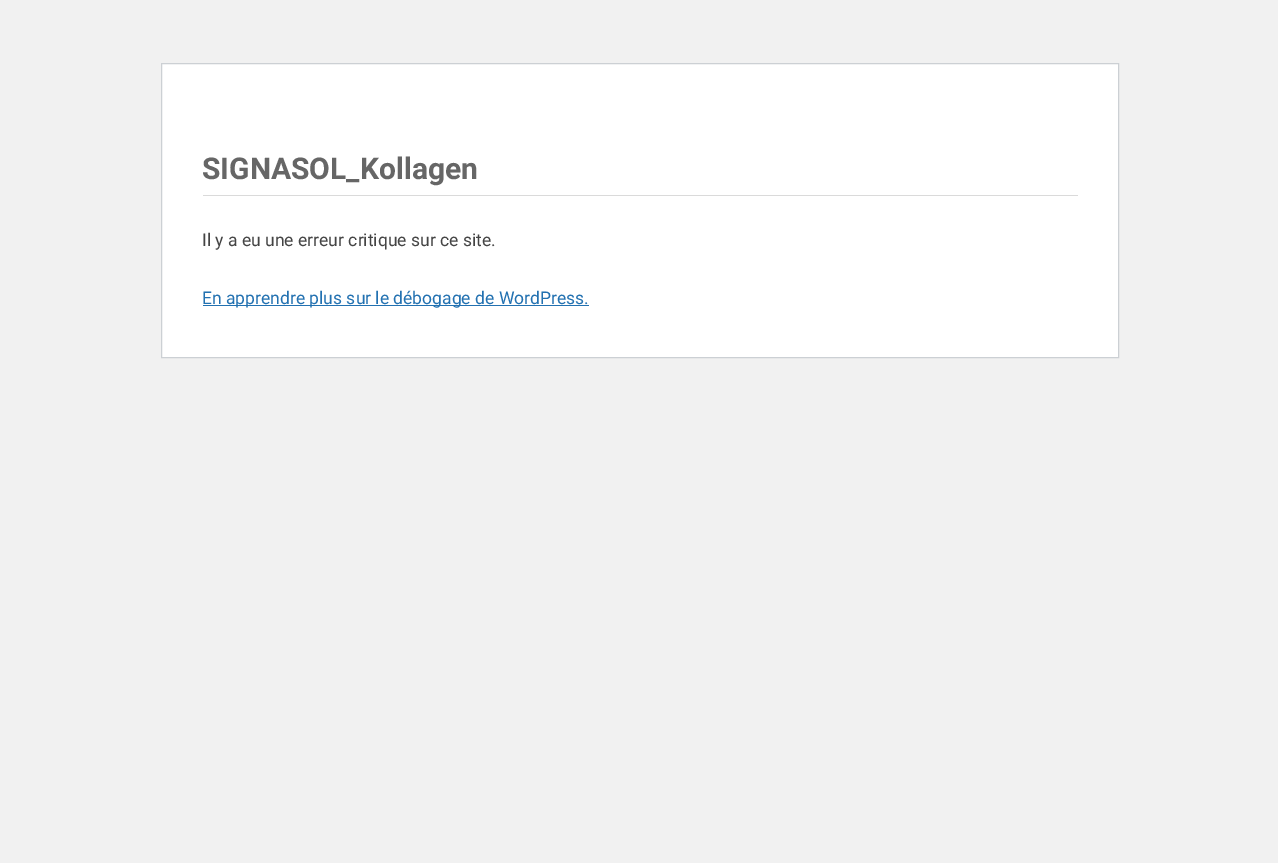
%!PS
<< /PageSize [1278 863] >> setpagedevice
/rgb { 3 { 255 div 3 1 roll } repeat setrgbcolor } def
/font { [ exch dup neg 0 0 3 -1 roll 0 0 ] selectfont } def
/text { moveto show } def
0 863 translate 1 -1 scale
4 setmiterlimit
241 241 241 rgb
0 0 1278 863 rectfill
255 255 255 rgb
161.5 63.5 moveto 957 0 rlineto 0 294 rlineto -957 0 rlineto closepath gsave fill grestore
204 208 212 rgb
stroke
218 218 218 rgb
203 195 875 1 rectfill
34 113 177 rgb
203 305 386 1 rectfill
/Roboto-Bold 30 font
102 102 102 rgb
(SIGNASOL_Kollagen) 202 179 text
/Roboto-Regular 17.5 font
68 68 68 rgb
(Il y a eu une erreur critique sur ce site.) 202 246 text
34 113 177 rgb
(En apprendre plus sur le débogage de WordPress.) 202 304 text
showpage
